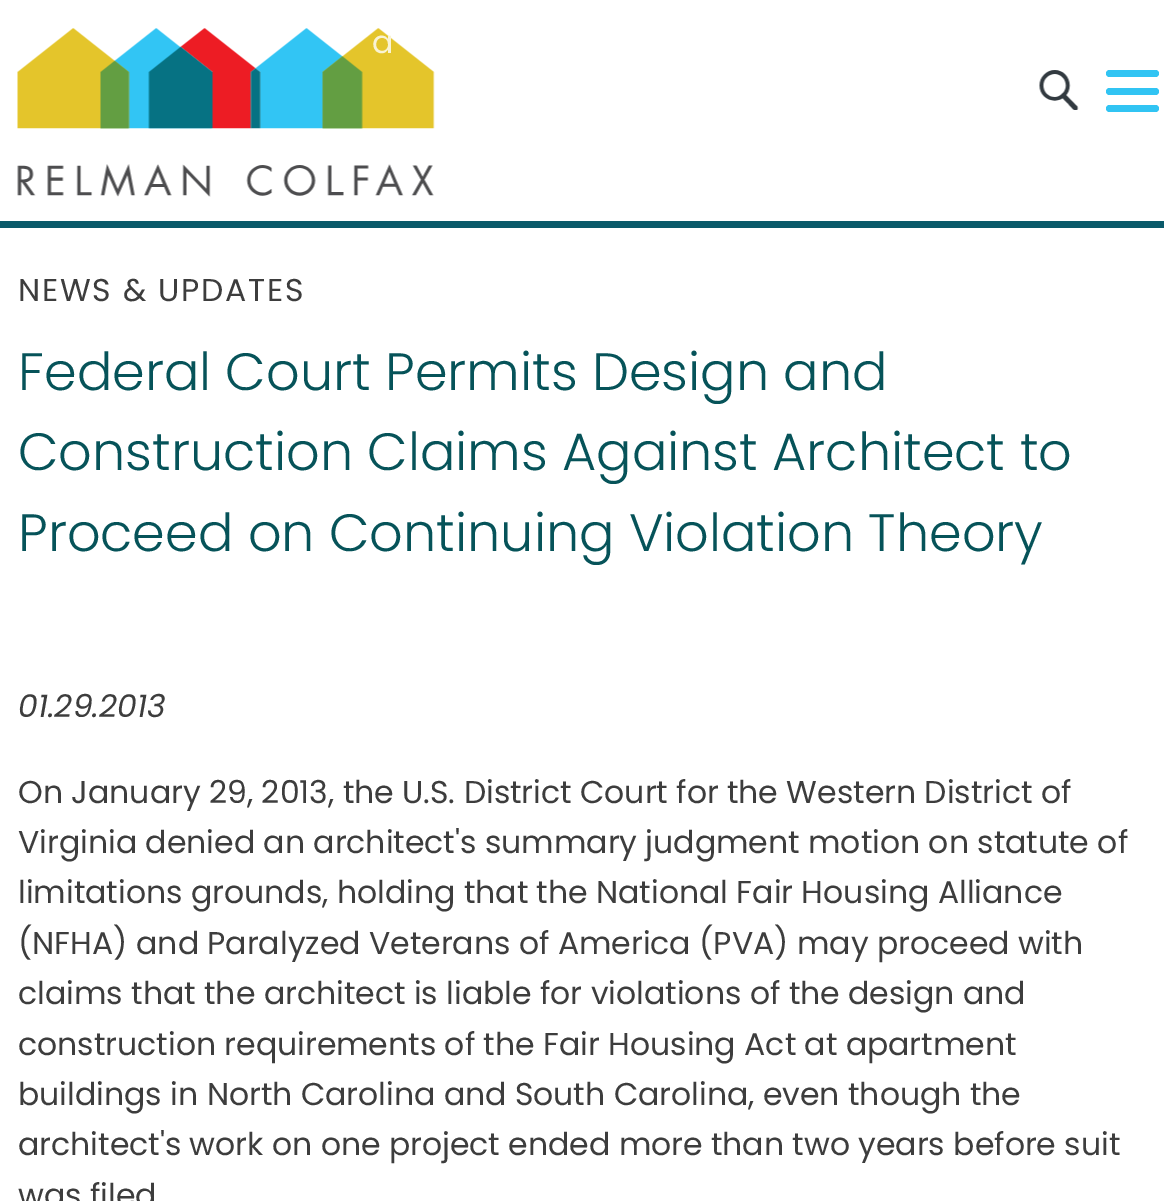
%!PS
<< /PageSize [1164 1201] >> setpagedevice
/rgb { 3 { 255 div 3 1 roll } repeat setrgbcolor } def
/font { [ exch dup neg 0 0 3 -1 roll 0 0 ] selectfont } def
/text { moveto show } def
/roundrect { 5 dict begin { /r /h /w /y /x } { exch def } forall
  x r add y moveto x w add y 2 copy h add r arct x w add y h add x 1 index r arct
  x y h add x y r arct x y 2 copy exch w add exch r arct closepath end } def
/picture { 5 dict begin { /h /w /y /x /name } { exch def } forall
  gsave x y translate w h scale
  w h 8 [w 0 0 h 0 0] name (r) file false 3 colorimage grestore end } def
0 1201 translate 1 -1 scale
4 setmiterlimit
255 255 255 rgb
0 0 1164 1201 rectfill
(img_01.rgb) 17 28 418 169 picture
(img_02.rgb) 1039 70 40 40 picture
49 196 243 rgb
1106 70 53 7 3.5 roundrect fill
1106 88 53 7 3.5 roundrect fill
1106 105 53 7 3.5 roundrect fill
10 90 106 rgb
0 221 1164 7 rectfill
/Poppins-Regular 31.5 font
249 243 211 rgb
(a) 372 53 text
61 61 61 rgb
18 301 moveto 1.75 0 (NEWS & UPDATES) ashow
/Poppins-Light 52.5 font
6 83 89 rgb
(Federal Court Permits Design and) 18 390 text
(Construction Claims Against Architect to) 18 470 text
(Proceed on Continuing Violation Theory) 18 551 text
/Poppins-Italic 31.5 font
61 61 61 rgb
(01.29.2013) 18 717 text
/Poppins-Regular 31.5 font
(On January 29, 2013, the U.S. District Court for the Western District of) 18 803 text
(Virginia denied an architect's summary judgment motion on statute of) 18 853 text
(limitations grounds, holding that the National Fair Housing Alliance) 18 903 text
(\(NFHA\) and Paralyzed Veterans of America \(PVA\) may proceed with) 18 954 text
(claims that the architect is liable for violations of the design and) 18 1004 text
(construction requirements of the Fair Housing Act at apartment) 18 1055 text
(buildings in North Carolina and South Carolina, even though the) 18 1105 text
(architect's work on one project ended more than two years before suit) 18 1155 text
(was filed) 18 1206 text
showpage
